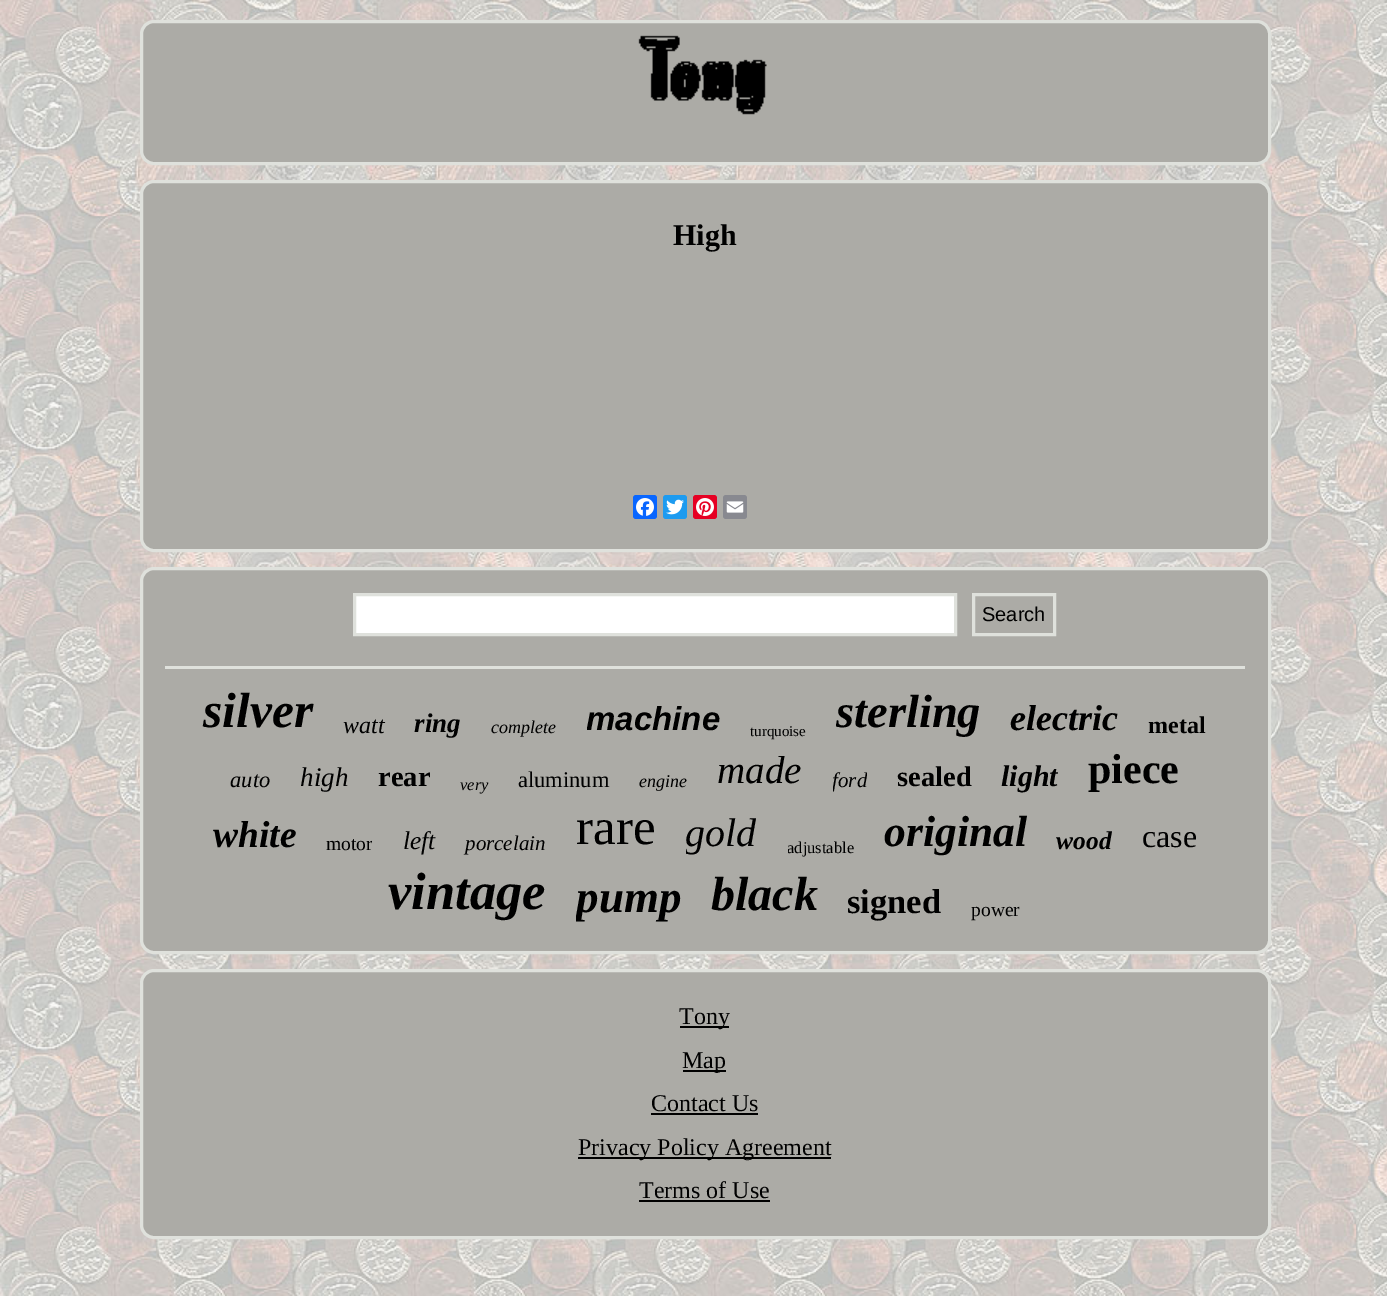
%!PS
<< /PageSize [1387 1296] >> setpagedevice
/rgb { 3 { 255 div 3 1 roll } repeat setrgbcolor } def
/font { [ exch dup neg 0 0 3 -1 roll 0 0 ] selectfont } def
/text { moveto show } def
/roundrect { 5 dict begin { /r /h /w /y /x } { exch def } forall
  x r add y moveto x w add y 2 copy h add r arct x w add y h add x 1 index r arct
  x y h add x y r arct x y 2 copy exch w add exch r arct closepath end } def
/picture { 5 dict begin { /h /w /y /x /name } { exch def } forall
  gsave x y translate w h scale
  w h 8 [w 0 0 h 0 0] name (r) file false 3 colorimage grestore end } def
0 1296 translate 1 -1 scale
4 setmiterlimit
255 255 255 rgb
0 0 1387 1296 rectfill
(img_01.rgb) 0 0 1387 1296 picture
172 171 166 rgb
141.5 21.5 1128 142 12.5 roundrect gsave fill grestore
223 225 220 rgb
3 setlinewidth
stroke
(img_02.rgb) 638 35 129 80 picture
172 171 166 rgb
141.5 181.5 1128 369 12.5 roundrect gsave fill grestore
223 225 220 rgb
stroke
8 102 255 rgb
633 495 24 24 3 roundrect fill
(img_03.rgb) 636 498 18 18 picture
29 155 240 rgb
663 495 24 24 3 roundrect fill
(img_04.rgb) 666 499 18 16 picture
230 0 35 rgb
693 495 24 24 3 roundrect fill
(img_05.rgb) 696 498 18 18 picture
136 137 144 rgb
723 495 24 24 3 roundrect fill
(img_06.rgb) 726 501 18 12 picture
172 171 166 rgb
141.5 568.5 1128 384 12.5 roundrect gsave fill grestore
223 225 220 rgb
stroke
255 255 255 rgb
354.5 594.5 moveto 601 0 rlineto 0 40 rlineto -601 0 rlineto closepath gsave fill grestore
223 225 220 rgb
stroke
973.5 594.5 81 40 rectstroke
165 666 1080 3 rectfill
172 171 166 rgb
141.5 970.5 1128 267 12.5 roundrect gsave fill grestore
223 225 220 rgb
stroke
0 0 0 rgb
680 1026 49 2 rectfill
683 1070 43 2 rectfill
651 1113 107 2 rectfill
578 1157 253 2 rectfill
639 1200 131 2 rectfill
/LiberationSerif-Bold 30 font
(High) 673 245 text
/LiberationSans-Regular 20 font
(Search) 982 621 text
/LiberationSerif-BoldItalic 49.5 font
(silver) 203 727 text
/LiberationSerif-Italic 24 font
(watt) 343 733 text
/LiberationSerif-BoldItalic 27 font
(ring) 414 732 text
/LiberationSerif-Italic 18 font
(complete) 491 733 text
gsave
587 701 133 39 rectclip
/LiberationSans-BoldItalic 33 font
(machine) 586 730 text
grestore
/LiberationSerif-Regular 15 font
(turquoise) 750 736 text
gsave
836 686 145 54 rectclip
/LiberationSerif-BoldItalic 46.5 font
(sterling) 836 727 text
grestore
/LiberationSerif-BoldItalic 36 font
(electric) 1010 730 text
/LiberationSerif-Bold 24 font
(metal) 1148 733 text
/LiberationSerif-Italic 22.5 font
(auto) 230 787 text
/LiberationSerif-Italic 27 font
(high) 300 786 text
/LiberationSerif-Bold 28.5 font
(rear) 378 786 text
/LiberationSerif-Italic 16.5 font
(very) 460 790 text
/LiberationSerif-Regular 22.5 font
(aluminum) 518 787 text
/LiberationSerif-Italic 18 font
(engine) 639 787 text
/LiberationSerif-Italic 39 font
(made) 717 783 text
gsave
833 770 34 24 rectclip
/LiberationSerif-Italic 21 font
(ford) 832 787 text
grestore
/LiberationSerif-Bold 28.5 font
(sealed) 897 786 text
/LiberationSerif-BoldItalic 30 font
(light) 1001 786 text
/LiberationSerif-Bold 42 font
(piece) 1088 783 text
/LiberationSerif-BoldItalic 37.5 font
(white) 213 847 text
gsave
326 833 46 24 rectclip
/LiberationSerif-Regular 19.5 font
(motor) 326 850 text
grestore
/LiberationSerif-Italic 25.5 font
(left) 403 849 text
/LiberationSerif-Italic 21 font
(porcelain) 465 850 text
/LiberationSerif-Regular 51 font
(rare) 576 844 text
gsave
686 810 72 47 rectclip
/LiberationSerif-Italic 40 font
(gold) 685 846 text
grestore
gsave
788 839 66 18 rectclip
/LiberationSerif-Regular 16.5 font
(adjustable) 787 853 text
grestore
/LiberationSerif-BoldItalic 43.5 font
(original) 884 846 text
/LiberationSerif-BoldItalic 25.5 font
(wood) 1056 849 text
/LiberationSerif-Regular 32 font
(case) 1142 847 text
/LiberationSerif-BoldItalic 52.5 font
(vintage) 388 909 text
gsave
576 872 105 51 rectclip
/LiberationSerif-BoldItalic 45 font
(pump) 576 912 text
grestore
/LiberationSerif-BoldItalic 48 font
(black) 711 910 text
/LiberationSerif-Bold 34.5 font
(signed) 847 913 text
/LiberationSerif-Regular 19.5 font
(power) 971 916 text
/LiberationSerif-Regular 24 font
(Tony) 679 1024 text
(Map) 682 1068 text
(Contact Us) 651 1111 text
(Privacy Policy Agreement) 578 1155 text
(Terms of Use) 639 1198 text
showpage
